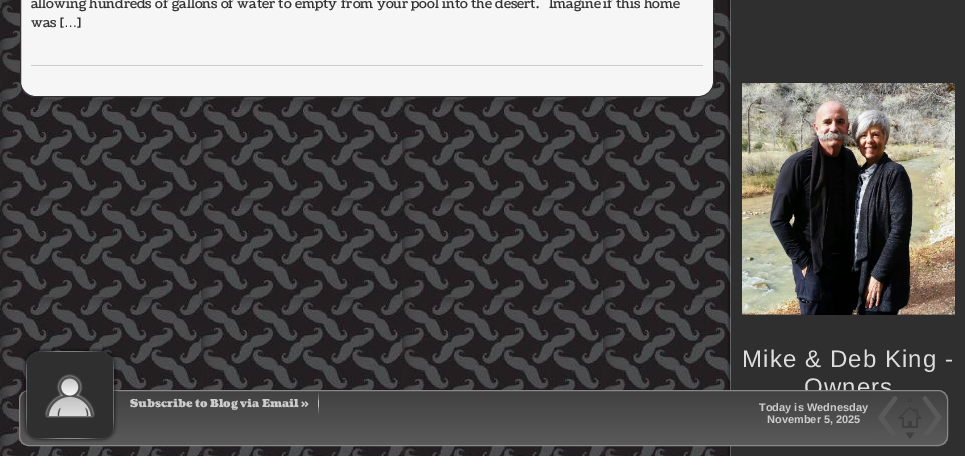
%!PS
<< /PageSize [965 456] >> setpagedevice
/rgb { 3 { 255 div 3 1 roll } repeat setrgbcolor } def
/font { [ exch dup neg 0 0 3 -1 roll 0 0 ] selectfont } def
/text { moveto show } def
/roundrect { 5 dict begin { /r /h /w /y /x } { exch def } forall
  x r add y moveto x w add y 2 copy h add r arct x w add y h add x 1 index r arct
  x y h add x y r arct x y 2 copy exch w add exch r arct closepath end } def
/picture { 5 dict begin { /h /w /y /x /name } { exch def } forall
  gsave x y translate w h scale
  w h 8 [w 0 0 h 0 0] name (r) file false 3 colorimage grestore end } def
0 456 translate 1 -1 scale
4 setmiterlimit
255 255 255 rgb
0 0 965 456 rectfill
(img_01.rgb) 0 0 731 456 picture
246 246 246 rgb
20.5 -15.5 693 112 14.5 roundrect gsave fill grestore
51 51 51 rgb
stroke
204 204 204 rgb
31 65 672 1 rectfill
(img_02.rgb) 727 0 238 456 picture
(img_03.rgb) 742 83 213 232 picture
/Coustard-Regular 13.2 font
51 51 51 rgb
(allowing hundreds of gallons of water to empty from your pool into the desert.   Imagine) 31 8 text
(if this home) 603 8 text
(was [) 31 27 text
/LiberationSans-Regular 13.2 font
(…) 64 27 text
/Coustard-Regular 13.2 font
(]) 77 27 text
/LiberationSans-Regular 24 font
221 221 221 rgb
742 367 moveto 1.1 0 (Mike & Deb King -) ashow
804 395 moveto 1.1 0 (Owners) ashow
gsave
19 390 929 56 10 roundrect clip newpath
gsave 19 391 moveto 929 0 rlineto 0 54 rlineto -929 0 rlineto closepath clip newpath
<< /ShadingType 2 /ColorSpace /DeviceRGB /Coords [484 391 484 445] /Extend [true true] /Function << /FunctionType 2 /Domain [0 1] /C0 [0.255 0.255 0.255] /C1 [0.353 0.353 0.353] /N 1 >> >> shfill grestore
grestore
136 136 136 rgb
19.5 390.5 928 55 9.5 roundrect stroke
(img_04.rgb) 22 348 96 95 picture
(img_05.rgb) 45 374 50 44 picture
(img_06.rgb) 318 392 1 23 picture
/Coustard-Black 11 font
204 204 204 rgb
(Subscribe to Blog via Email ») 130 407 text
/LiberationSans-Bold 11 font
(Today is Wednesday) 759 411 text
(img_07.rgb) 878 396 64 39 picture
(img_08.rgb) 906 396 8 7 picture
(img_09.rgb) 898 406 24 22 picture
(img_10.rgb) 905 432 10 7 picture
(November 5, 2025) 767 423 text
showpage
